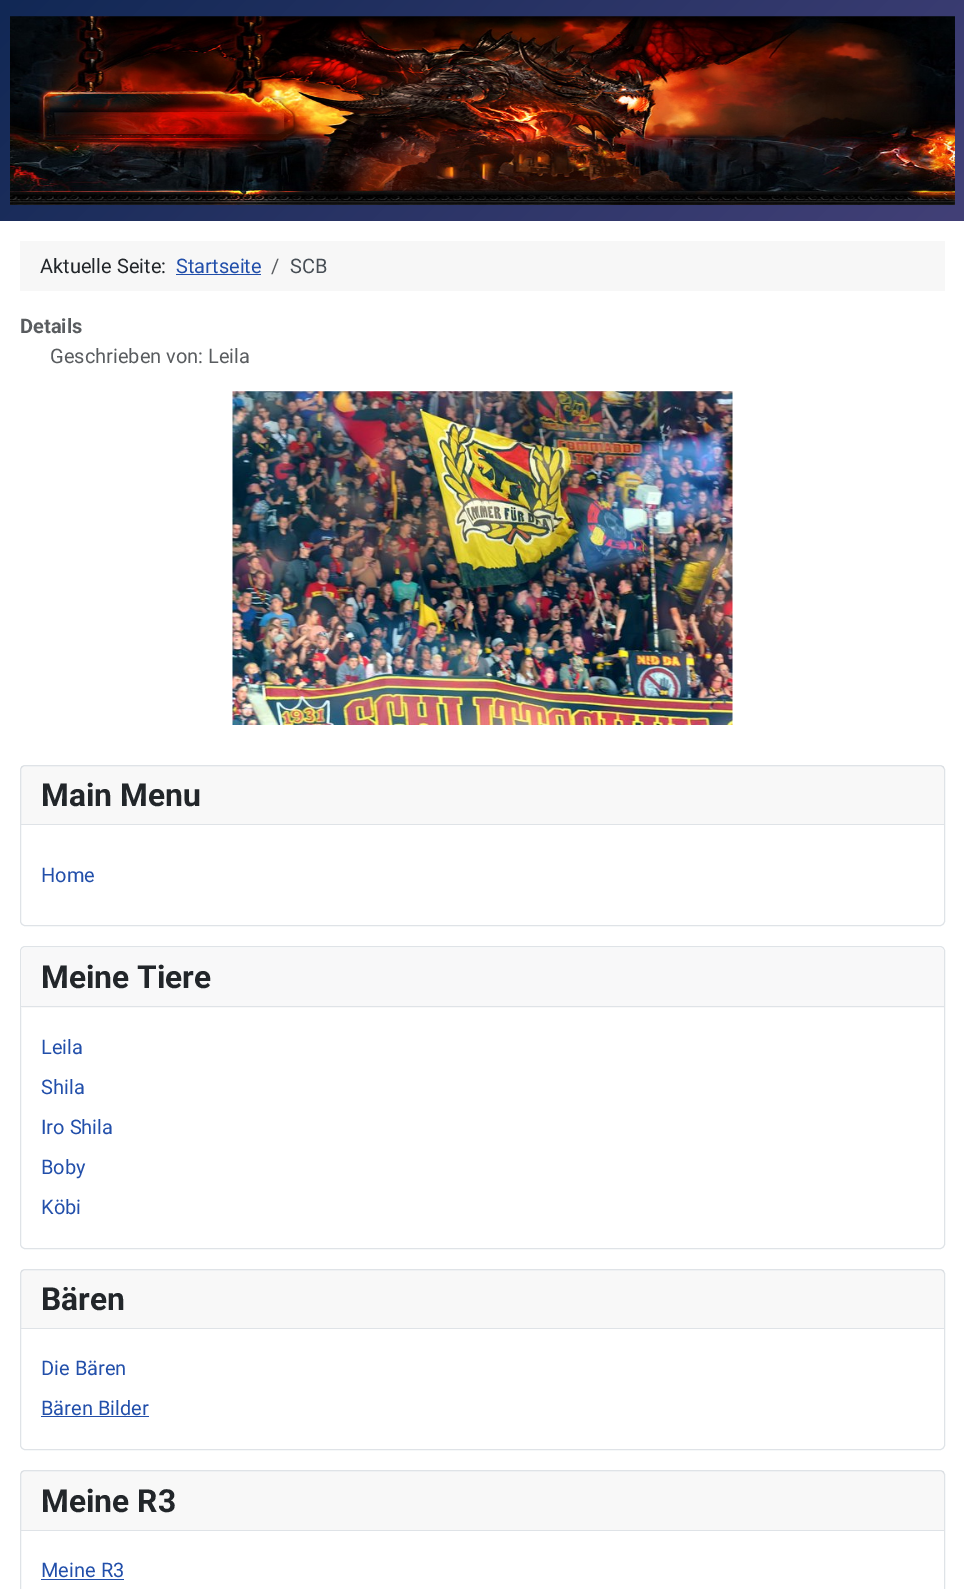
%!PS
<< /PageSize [964 1589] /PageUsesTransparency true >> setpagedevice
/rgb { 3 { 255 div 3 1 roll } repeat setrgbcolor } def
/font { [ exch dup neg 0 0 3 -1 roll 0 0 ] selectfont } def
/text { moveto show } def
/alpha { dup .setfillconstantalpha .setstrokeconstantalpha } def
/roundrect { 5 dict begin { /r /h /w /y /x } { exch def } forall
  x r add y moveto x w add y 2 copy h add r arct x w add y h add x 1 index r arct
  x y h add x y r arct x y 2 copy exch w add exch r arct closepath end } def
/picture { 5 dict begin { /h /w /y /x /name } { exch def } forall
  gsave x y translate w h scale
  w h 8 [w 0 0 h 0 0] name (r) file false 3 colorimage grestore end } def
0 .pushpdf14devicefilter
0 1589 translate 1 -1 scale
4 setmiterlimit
255 255 255 rgb
0 0 964 1589 rectfill
gsave 0 0 moveto 964 0 rlineto 0 221 rlineto -964 0 rlineto closepath clip newpath
<< /ShadingType 2 /ColorSpace /DeviceRGB /Coords [186 -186 779 407] /Extend [true true] /Function << /FunctionType 2 /Domain [0 1] /C0 [0.067 0.157 0.333] /C1 [0.259 0.251 0.467] /N 1 >> >> shfill grestore
(img_01.rgb) 10 16 945 189 picture
247 247 247 rgb
20 241 925 50 rectfill
34 79 170 rgb
176 274 85 1 rectfill
(img_02.rgb) 232 391 501 334 picture
223 227 231 rgb
20.5 765.5 924 160 4.5 roundrect stroke
0.03 alpha
34 38 42 rgb
21 766 923 58 rectfill
1 alpha
223 227 231 rgb
21 824 923 1 rectfill
20.5 946.5 924 302 4.5 roundrect stroke
248 248 249 rgb
25 948 moveto 915 0 rlineto 2 0 4 2 4 4 rcurveto 0 56 rlineto -923 0 rlineto 0 -56 rlineto 0 -2 2 -4 4 -4 rcurveto closepath fill
223 227 231 rgb
21 1006 923 1 rectfill
20.5 1269.5 924 180 4.5 roundrect stroke
0.03 alpha
34 38 42 rgb
21 1270 923 58 rectfill
1 alpha
223 227 231 rgb
21 1328 923 1 rectfill
34 79 170 rgb
41 1416 108 1 rectfill
223 227 231 rgb
20.5 1470.5 924 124 4.5 roundrect stroke
0.03 alpha
34 38 42 rgb
21 1471 923 59 rectfill
1 alpha
223 227 231 rgb
21 1530 923 1 rectfill
34 79 170 rgb
41 1579 83 1 rectfill
/Roboto-Regular 20 font
34 38 42 rgb
(Aktuelle Seite:) 40 273 text
34 79 170 rgb
(Startseite) 176 273 text
89 92 95 rgb
(/) 271 273 text
72 79 86 rgb
(SCB) 290 273 text
/Roboto-Bold 20 font
89 92 95 rgb
(Details) 20 333 text
/Roboto-Regular 20 font
(Geschrieben von: Leila) 50 363 text
/Roboto-Bold 31.75 font
34 38 42 rgb
(Main Menu) 41 806 text
/Roboto-Regular 20 font
34 79 170 rgb
(Home) 41 882 text
/Roboto-Bold 31.75 font
34 38 42 rgb
(Meine Tiere) 41 988 text
/Roboto-Regular 20 font
34 79 170 rgb
(Leila) 41 1054 text
(Shila) 41 1094 text
(Iro Shila) 41 1134 text
(Boby) 41 1174 text
(Köbi) 41 1214 text
/Roboto-Bold 31.75 font
34 38 42 rgb
(Bären) 41 1310 text
/Roboto-Regular 20 font
34 79 170 rgb
(Die Bären) 41 1375 text
(Bären Bilder) 41 1415 text
/Roboto-Bold 31.75 font
34 38 42 rgb
(Meine R3) 41 1512 text
/Roboto-Regular 20 font
34 79 170 rgb
(Meine R3) 41 1577 text
.poppdf14devicefilter showpage
